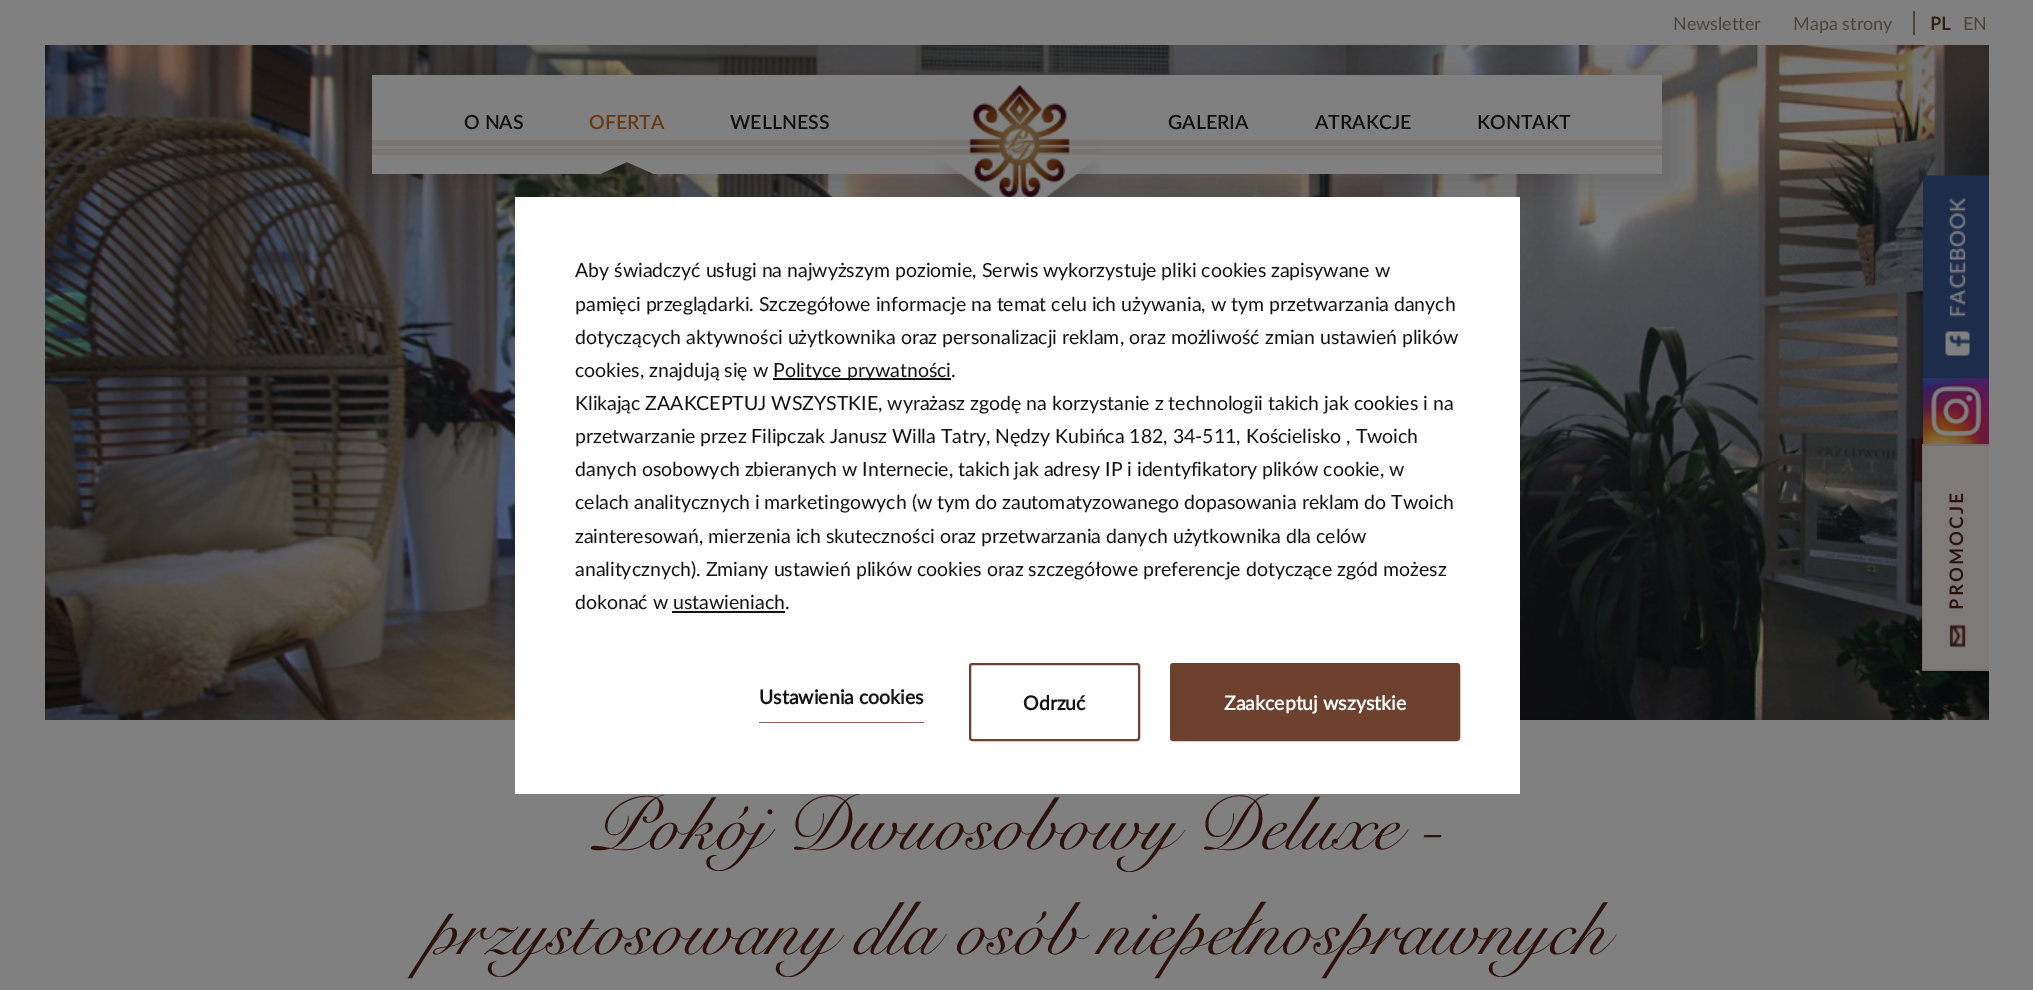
%!PS
<< /PageSize [2033 990] /PageUsesTransparency true >> setpagedevice
/rgb { 3 { 255 div 3 1 roll } repeat setrgbcolor } def
/font { [ exch dup neg 0 0 3 -1 roll 0 0 ] selectfont } def
/text { moveto show } def
/alpha { dup .setfillconstantalpha .setstrokeconstantalpha } def
/roundrect { 5 dict begin { /r /h /w /y /x } { exch def } forall
  x r add y moveto x w add y 2 copy h add r arct x w add y h add x 1 index r arct
  x y h add x y r arct x y 2 copy exch w add exch r arct closepath end } def
/shadow { 12 dict begin { /a /b /q /h /w /y /x } { exch def } forall gsave /was 0 def
  9 -2 -9 { dup b mul 4 div /e exch def 1 sub .425 mul 2.718 exch exp 1 add a .99 .min exch div /now exch def
    1 1 now sub 1 was sub div sub alpha /was now def
    w h .min e 2 mul add 0 gt { x e sub y e sub w e 2 mul add h e 2 mul add
      q e add b .6 mul add w h .min 2 div e add .min 0 .max roundrect fill } if } for grestore end } def
/picture { 5 dict begin { /h /w /y /x /name } { exch def } forall
  gsave x y translate w h scale
  w h 8 [w 0 0 h 0 0] name (r) file false 3 colorimage grestore end } def
0 .pushpdf14devicefilter
0 990 translate 1 -1 scale
4 setmiterlimit
128 128 128 rgb
0 0 2033 990 rectfill
77 69 60 rgb
1913 11 2 24 rectfill
(img_01.rgb) 45 45 1944 675 picture
34 12 9 rgb
360 74 1314 111 0 15 0.15 shadow
128 128 128 rgb
372 75 1290 87 rectfill
863 162 661 12 rectfill
122 117 113 rgb
372 140 1290 6 rectfill
372 149 1290 6 rectfill
(img_02.rgb) 935 85 166 112 picture
128 128 128 rgb
556 162 moveto 71 0 rlineto -27 12 rlineto -44 0 rlineto closepath fill
627 162 moveto 71 0 rlineto 0 12 rlineto -44 0 rlineto closepath fill
698 162 165 12 rectfill
372 162 184 12 rectfill
1524 162 138 12 rectfill
(img_03.rgb) 1923 175 66 203 picture
(img_04.rgb) 1923 378 66 66 picture
116 110 107 rgb
1922 444 67 2 rectfill
1922 669 67 2 rectfill
1922 444 2 227 rectfill
(img_05.rgb) 1923 446 66 224 picture
/Lato-Regular 18 font
77 69 60 rgb
(Newsletter) 1673 30 text
(Mapa strony) 1793 30 text
/Lato-Bold 18 font
51 30 21 rgb
(PL) 1930 30 text
/Lato-Regular 18 font
77 69 60 rgb
(EN) 1963 30 text
/Lato-SemiBold 19.5 font
16 16 16 rgb
(O NAS) 464 129 text
105 57 17 rgb
(OFERTA) 589 129 text
16 16 16 rgb
(WELLNESS) 730 129 text
(GALERIA) 1168 129 text
(ATRAKCJE) 1315 129 text
(KONTAKT) 1477 129 text
/Lato-Bold 18 font
46 17 10 rgb
gsave 1963 610 translate -90 rotate 0 0 moveto 2.75 0 (PROMOCJE) ashow grestore
/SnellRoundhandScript-Italic 75 font
(Pokój Dwuosobowy Deluxe -) 591 849 text
(przystosowany dla osób niepełnosprawnych) 427 954 text
255 255 255 rgb
515 197 1005 597 rectfill
/Lato-Regular 19.5 font
20 20 22 rgb
(Aby świadczyć usługi na najwyższym poziomie, Serwis wykorzystuje pliki cookies zapisywane w) 575 277 text
(pamięci przeglądarki. Szczegółowe informacje na temat celu ich używania, w tym przetwarzania danych) 575 311 text
(dotyczących aktywności użytkownika oraz personalizacji reklam, oraz możliwość zmian ustawień plików) 575 344 text
(cookies, znajdują się w) 575 377 text
773 378 178 2 rectfill
(Polityce prywatności.) 773 377 text
(Klikając ZAAKCEPTUJ WSZYSTKIE, wyrażasz zgodę na korzystanie z technologii takich jak cookies i na) 575 410 text
(przetwarzanie przez Filipczak Janusz Willa Tatry, Nędzy Kubińca 182, 34-511, Kościelisko , Twoich) 575 443 text
(danych osobowych zbieranych w Internecie, takich jak adresy IP i identyfikatory plików cookie, w) 575 476 text
(celach analitycznych i marketingowych \(w tym do zautomatyzowanego dopasowania reklam do Twoich) 575 509 text
(zainteresowań, mierzenia ich skuteczności oraz przetwarzania danych użytkownika dla celów) 575 543 text
(analitycznych\). Zmiany ustawień plików cookies oraz szczegółowe preferencje dotyczące zgód możesz) 575 576 text
(dokonać w ustawieniach.) 575 609 text
672 611 113 2 rectfill
/Lato-Bold 19.5 font
(Ustawienia cookies) 759 704 text
139 102 88 rgb
759 722 165 1 rectfill
110 64 46 rgb
2 setlinewidth
970 664 169 76 2 roundrect stroke
20 20 22 rgb
(Odrzuć) 1023 710 text
110 64 46 rgb
1171 664 288 76 2 roundrect stroke
1172 665 286 74 rectfill
255 255 255 rgb
(Zaakceptuj wszystkie) 1224 710 text
.poppdf14devicefilter showpage
